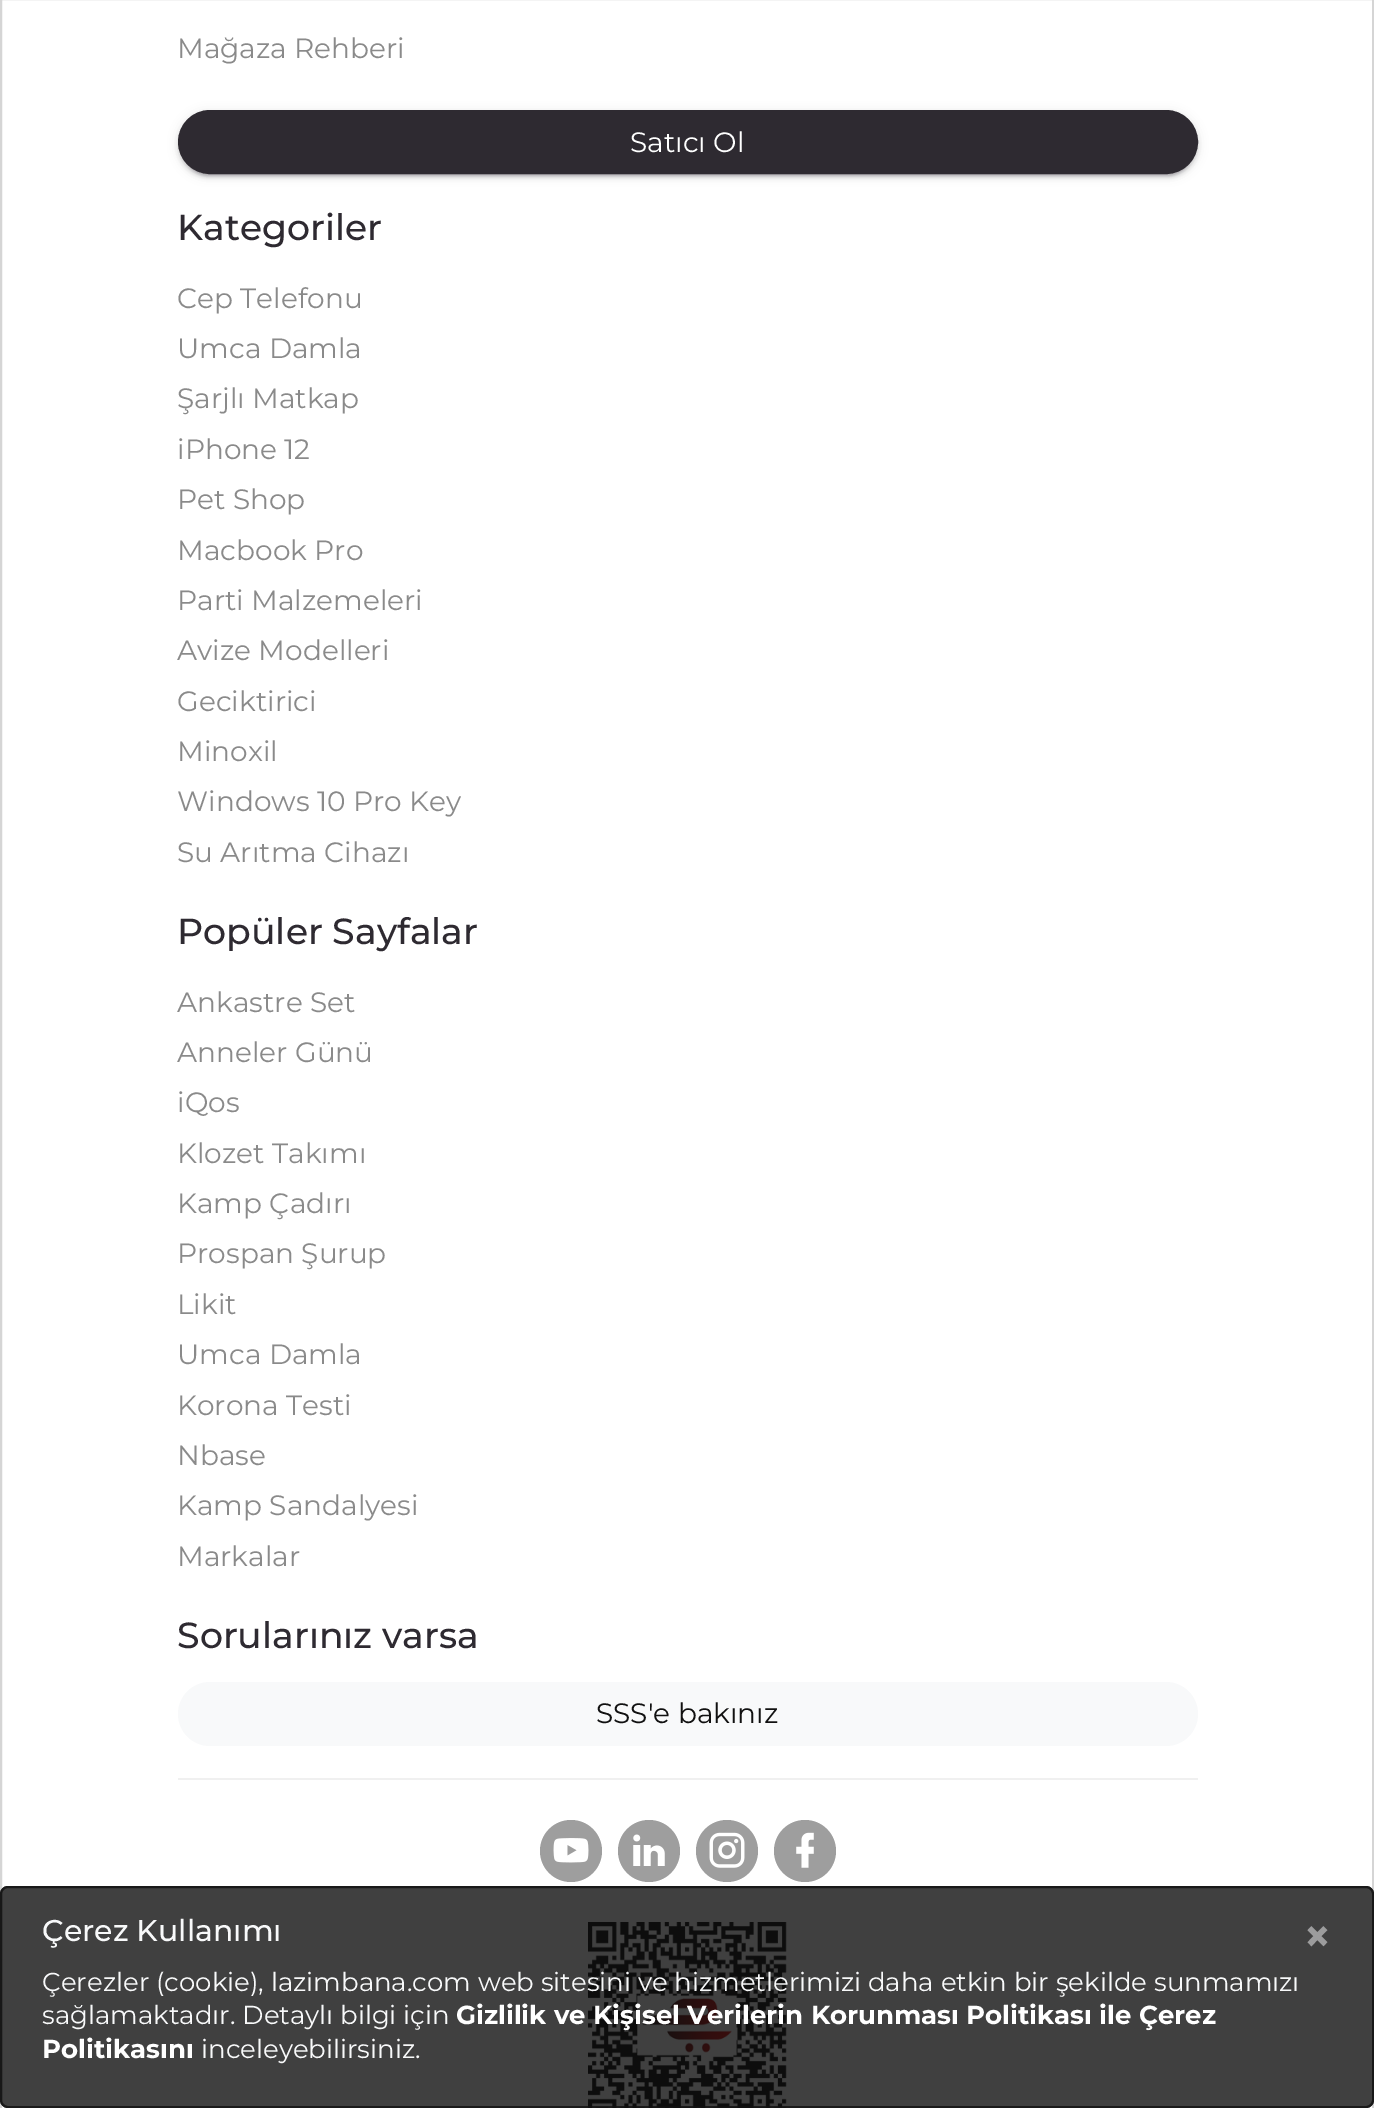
%!PS
<< /PageSize [1374 2108] /PageUsesTransparency true >> setpagedevice
/rgb { 3 { 255 div 3 1 roll } repeat setrgbcolor } def
/font { [ exch dup neg 0 0 3 -1 roll 0 0 ] selectfont } def
/text { moveto show } def
/alpha { dup .setfillconstantalpha .setstrokeconstantalpha } def
/circle { newpath 0 360 arc closepath } def
/roundrect { 5 dict begin { /r /h /w /y /x } { exch def } forall
  x r add y moveto x w add y 2 copy h add r arct x w add y h add x 1 index r arct
  x y h add x y r arct x y 2 copy exch w add exch r arct closepath end } def
/shadow { 12 dict begin { /a /b /q /h /w /y /x } { exch def } forall gsave /was 0 def
  9 -2 -9 { dup b mul 4 div /e exch def 1 sub .425 mul 2.718 exch exp 1 add a .99 .min exch div /now exch def
    1 1 now sub 1 was sub div sub alpha /was now def
    w h .min e 2 mul add 0 gt { x e sub y e sub w e 2 mul add h e 2 mul add
      q e add b .6 mul add w h .min 2 div e add .min 0 .max roundrect fill } if } for grestore end } def
/picture { 5 dict begin { /h /w /y /x /name } { exch def } forall
  gsave x y translate w h scale
  w h 8 [w 0 0 h 0 0] name (r) file false 3 colorimage grestore end } def
0 .pushpdf14devicefilter
0 2108 translate 1 -1 scale
4 setmiterlimit
255 255 255 rgb
0 0 1374 2108 rectfill
213 213 213 rgb
2 setlinewidth
1 -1 1372 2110 rectstroke
46 42 49 rgb
178 112 1020 64 32 5 0.12 shadow
182 120 1012 56 28 1 0.2 shadow
178 114 1020 64 32 2 0.14 shadow
179 111 1018 62 31 roundrect gsave fill grestore
stroke
248 249 250 rgb
178 1682 1020 64 32 roundrect fill
240 240 240 rgb
178 1778 1020 2 rectfill
158 158 158 rgb
571 1851 31 circle fill
(img_01.rgb) 553 1838 36 25 picture
649 1851 31 circle fill
(img_02.rgb) 633 1834 32 32 picture
727 1851 31 circle fill
(img_03.rgb) 709 1832 36 36 picture
805 1851 31 circle fill
(img_04.rgb) 796 1832 18 36 picture
(img_05.rgb) 588 1922 199 186 picture
0.8 alpha
16 16 16 rgb
0 1886 1374 222 8 roundrect fill
1 1887 1372 220 7 roundrect stroke
/Montserrat-Regular 28 font
1 alpha
138 138 138 rgb
(Mağaza Rehberi) 177 58 text
255 255 255 rgb
(Satıcı Ol) 630 152 text
/Montserrat-Medium 36.25 font
46 42 49 rgb
(Kategoriler) 177 240 text
/Montserrat-Regular 28 font
138 138 138 rgb
(Cep Telefonu) 177 308 text
(Umca Damla) 177 358 text
(Şarjlı Matkap) 177 408 text
(iPhone 12) 177 459 text
(Pet Shop) 177 509 text
(Macbook Pro) 177 560 text
(Parti Malzemeleri) 177 610 text
(Avize Modelleri) 177 660 text
(Geciktirici) 177 711 text
(Minoxil) 177 761 text
(Windows 10 Pro Key) 177 811 text
(Su Arıtma Cihazı) 177 862 text
/Montserrat-Medium 36.25 font
46 42 49 rgb
(Popüler Sayfalar) 177 944 text
/Montserrat-Regular 28 font
138 138 138 rgb
(Ankastre Set) 177 1012 text
(Anneler Günü) 177 1062 text
(iQos) 177 1112 text
(Klozet Takımı) 177 1163 text
(Kamp Çadırı) 177 1213 text
(Prospan Şurup) 177 1263 text
(Likit) 177 1314 text
(Umca Damla) 177 1364 text
(Korona Testi) 177 1415 text
(Nbase) 177 1465 text
(Kamp Sandalyesi) 177 1515 text
(Markalar) 177 1566 text
/Montserrat-Medium 36.25 font
46 42 49 rgb
(Sorularınız varsa) 177 1648 text
/Montserrat-Regular 28 font
17 17 17 rgb
(SSS'e bakınız) 596 1723 text
/Montserrat-Medium 30 font
248 249 250 rgb
(Çerez Kullanımı) 42 1941 text
/Montserrat-Bold 48 font
156 156 157 rgb
(×) 1303 1953 text
/Montserrat-Regular 26 font
248 249 250 rgb
(Çerezler \(cookie\), lazimbana.com web sitesini ve hizmetlerimizi daha etkin bir şekilde sunmamızı) 42 1991 text
(sağlamaktadır. Detaylı bilgi için) 42 2024 text
/Montserrat-Bold 26 font
255 255 255 rgb
(Gizlilik ve Kişisel Verilerin Korunması Politikası ile Çerez) 456 2024 text
(Politikasını) 42 2058 text
/Montserrat-Regular 26 font
248 249 250 rgb
(inceleyebilirsiniz.) 201 2058 text
.poppdf14devicefilter showpage
